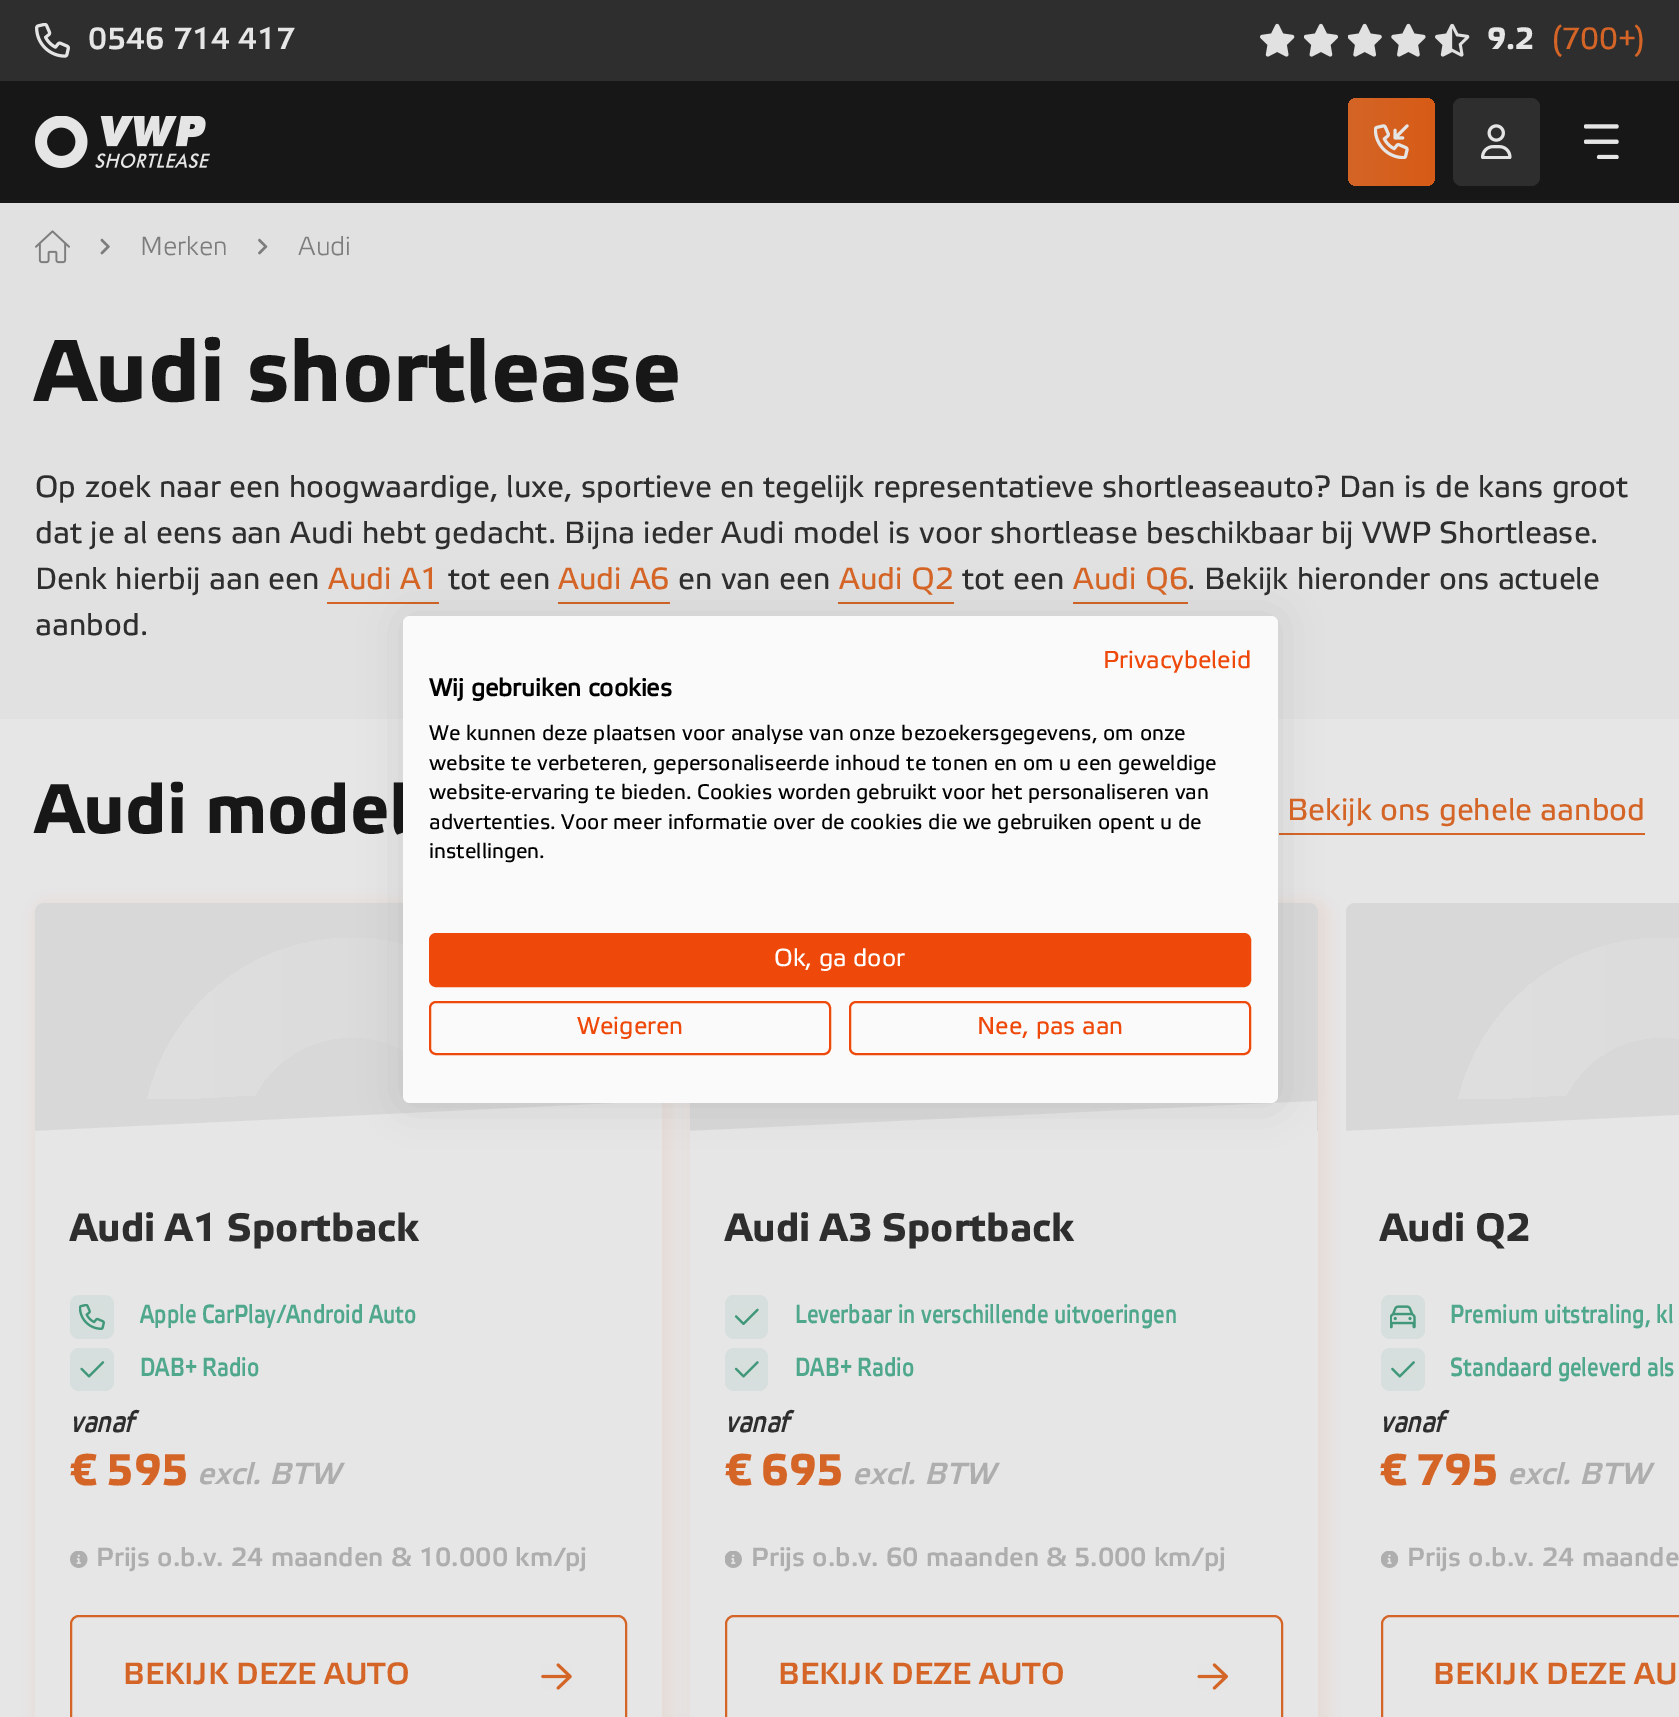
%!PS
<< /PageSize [1679 1717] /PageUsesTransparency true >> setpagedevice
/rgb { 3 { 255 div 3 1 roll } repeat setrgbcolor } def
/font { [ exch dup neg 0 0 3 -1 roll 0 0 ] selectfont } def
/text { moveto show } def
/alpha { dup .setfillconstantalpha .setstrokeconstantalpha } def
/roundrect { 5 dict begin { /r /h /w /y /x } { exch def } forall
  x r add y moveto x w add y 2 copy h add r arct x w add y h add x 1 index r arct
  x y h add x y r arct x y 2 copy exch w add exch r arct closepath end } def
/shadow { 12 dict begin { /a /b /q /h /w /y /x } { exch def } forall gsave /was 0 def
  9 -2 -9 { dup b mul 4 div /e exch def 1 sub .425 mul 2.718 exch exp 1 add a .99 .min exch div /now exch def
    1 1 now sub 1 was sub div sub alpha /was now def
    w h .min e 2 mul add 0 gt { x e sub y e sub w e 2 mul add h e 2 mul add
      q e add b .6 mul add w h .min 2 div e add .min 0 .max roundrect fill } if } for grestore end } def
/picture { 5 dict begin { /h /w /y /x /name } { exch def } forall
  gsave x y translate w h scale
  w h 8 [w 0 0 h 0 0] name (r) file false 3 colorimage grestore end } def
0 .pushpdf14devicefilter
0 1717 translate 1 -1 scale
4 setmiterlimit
230 230 230 rgb
0 0 1679 1717 rectfill
23 23 23 rgb
0 81 1679 122 rectfill
46 46 46 rgb
0 0 1679 81 rectfill
(img_01.rgb) 35 23 35 35 picture
(img_02.rgb) 1260 23 35 34 picture
(img_03.rgb) 1304 23 34 34 picture
(img_04.rgb) 1348 23 34 34 picture
(img_05.rgb) 1391 23 35 34 picture
(img_06.rgb) 1435 23 35 34 picture
(img_07.rgb) 35 116 175 52 picture
gsave 1348 98 87 88 9 roundrect clip newpath
<< /ShadingType 2 /ColorSpace /DeviceRGB /Coords [1348 142 1523 142] /Extend [true true] /Function << /FunctionType 2 /Domain [0 1] /C0 [0.831 0.396 0.153] /C1 [0.855 0.318 0.02] /N 1 >> >> shfill grestore
(img_08.rgb) 1374 124 35 35 picture
1453 98 87 88 9 roundrect fill
(img_09.rgb) 1481 124 31 35 picture
(img_10.rgb) 1584 124 35 35 picture
225 225 225 rgb
0 203 1679 516 rectfill
(img_11.rgb) 35 230 35 34 picture
(img_12.rgb) 100 238 10 17 picture
(img_13.rgb) 258 238 10 17 picture
212 101 39 rgb
327 602 112 2 rectfill
558 602 112 2 rectfill
838 602 116 2 rectfill
1073 602 115 2 rectfill
1279 833 366 2 rectfill
230 92 0 rgb
33 900 641 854 16 7 0.05 shadow
230 230 230 rgb
35 903 627 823 9 roundrect fill
216 216 216 rgb
44 903 moveto 609 0 rlineto 5 0 9 4 9 9 rcurveto 0 219 rlineto -627 0 rlineto 0 -219 rlineto 0 -5 4 -9 9 -9 rcurveto closepath fill
gsave
35 903 627 196 rectclip
gsave 351 938 moveto -100 0 -183 70 -204 163 rcurveto 108 -6 rlineto 39 -73 142 -78 187 -9 rcurveto 108 -5 rlineto -28 -83 -106 -143 -199 -143 rcurveto closepath clip newpath
<< /ShadingType 2 /ColorSpace /DeviceRGB /Coords [147 1019 550 1019] /Extend [true true] /Function << /FunctionType 2 /Domain [0 1] /C0 [0.875 0.875 0.875] /C1 [0.851 0.851 0.851] /N 1 >> >> shfill grestore
grestore
gsave
35 1101 627 47 rectclip
230 230 230 rgb
35 1131 moveto 627 -30 rlineto 0 40 rlineto 0 4 -4 8 -8 8 rcurveto -619 0 rlineto closepath fill
grestore
214 223 221 rgb
70 1295 44 44 9 roundrect fill
(img_14.rgb) 79 1304 26 26 picture
70 1348 44 43 9 roundrect fill
(img_15.rgb) 80 1361 25 17 picture
(img_16.rgb) 70 1551 18 17 picture
212 101 39 rgb
2 setlinewidth
71 1616 555 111 8 roundrect stroke
(img_17.rgb) 541 1663 31 27 picture
230 92 0 rgb
688 900 642 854 16 7 0.05 shadow
230 230 230 rgb
690 903 628 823 9 roundrect fill
216 216 216 rgb
699 903 moveto 610 0 rlineto 5 0 9 4 9 9 rcurveto 0 219 rlineto -628 0 rlineto 0 -219 rlineto 0 -5 4 -9 9 -9 rcurveto closepath fill
gsave
690 1101 628 47 rectclip
230 230 230 rgb
690 1131 moveto 627 -30 rlineto 0 40 rlineto 0 4 -4 8 -8 8 rcurveto -619 0 rlineto closepath fill
grestore
214 223 221 rgb
725 1295 43 44 9 roundrect fill
(img_18.rgb) 734 1308 25 18 picture
725 1348 43 43 9 roundrect fill
(img_19.rgb) 734 1361 25 17 picture
(img_20.rgb) 725 1551 17 17 picture
212 101 39 rgb
726 1616 556 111 8 roundrect stroke
(img_21.rgb) 1197 1663 31 27 picture
216 216 216 rgb
1355 903 moveto 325 0 rlineto 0 228 rlineto -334 0 rlineto 0 -219 rlineto 0 -5 4 -9 9 -9 rcurveto closepath fill
gsave
1346 903 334 196 rectclip
gsave 1662 938 moveto -100 0 -183 70 -204 163 rcurveto 108 -6 rlineto 38 -73 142 -78 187 -9 rcurveto 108 -5 rlineto -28 -83 -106 -143 -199 -143 rcurveto closepath clip newpath
<< /ShadingType 2 /ColorSpace /DeviceRGB /Coords [1458 1019 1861 1019] /Extend [true true] /Function << /FunctionType 2 /Domain [0 1] /C0 [0.875 0.875 0.875] /C1 [0.851 0.851 0.851] /N 1 >> >> shfill grestore
grestore
gsave
1346 1101 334 47 rectclip
230 230 230 rgb
1346 1131 moveto 0 18 rlineto 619 0 rlineto 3 0 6 -2 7 -4 rcurveto 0 -44 rlineto closepath fill
grestore
214 223 221 rgb
1381 1295 44 44 9 roundrect fill
(img_22.rgb) 1390 1305 26 24 picture
1381 1348 44 43 9 roundrect fill
(img_23.rgb) 1391 1361 24 17 picture
(img_24.rgb) 1381 1551 17 17 picture
212 101 39 rgb
1382 1616 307 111 8 roundrect stroke
0 0 0 rgb
403 616 875 487 7 21 0.1 shadow
/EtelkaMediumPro-Medium 30.62 font
230 230 230 rgb
(0546 714 417) 88 49 text
/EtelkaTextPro-Bold 30.62 font
(9.2) 1487 49 text
/EtelkaTextPro-Regular 30.62 font
212 101 39 rgb
(\(700+\)) 1552 49 text
/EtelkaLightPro-Light 26.25 font
125 125 125 rgb
(Merken) 140 255 text
(Audi) 298 255 text
/EtelkaTextPro-Bold 87.5 font
23 23 23 rgb
(Audi shortlease) 35 401 text
/EtelkaTextPro-Regular 30.62 font
46 46 46 rgb
(Op zoek naar een hoogwaardige, luxe, sportieve en tegelijk representatieve shortleaseauto? Dan is de kans groot) 35 497 text
(dat je al eens aan Audi hebt gedacht. Bijna ieder Audi model is voor shortlease beschikbaar bij VWP Shortlease.) 35 543 text
(Denk hierbij aan een) 35 589 text
212 101 39 rgb
(Audi A1) 328 589 text
46 46 46 rgb
(tot een) 448 589 text
212 101 39 rgb
(Audi A6) 558 589 text
46 46 46 rgb
(en van een) 678 589 text
212 101 39 rgb
(Audi Q2) 839 589 text
46 46 46 rgb
(tot een) 962 589 text
212 101 39 rgb
(Audi Q6) 1073 589 text
46 46 46 rgb
(. Bekijk hieronder ons actuele) 1187 589 text
(aanbod.) 35 635 text
/EtelkaTextPro-Bold 70 font
23 23 23 rgb
(Audi model) 35 833 text
/EtelkaTextPro-Regular 30.62 font
212 101 39 rgb
(Bekijk ons gehele aanbod) 1287 820 text
/EtelkaTextPro-Bold 39.4 font
46 46 46 rgb
(Audi A1 Sportback) 70 1241 text
/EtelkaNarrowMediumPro-Medium 26.25 font
79 167 140 rgb
(Apple CarPlay/Android Auto) 140 1323 text
(DAB+ Radio) 140 1376 text
/EtelkaNarrowMediumPro-MediumItalic 30.62 font
46 46 46 rgb
(vanaf) 70 1432 text
/EtelkaTextPro-Bold 44 font
212 101 39 rgb
(€) 70 1485 text
(595) 106 1485 text
/EtelkaMediumPro-MediumItalic 30.62 font
174 174 174 rgb
(excl. BTW) 197 1484 text
/EtelkaMediumPro-Medium 26.25 font
(Prijs o.b.v. 24 maanden & 10.000 km/pj) 96 1566 text
/EtelkaMediumPro-Medium 30.62 font
212 101 39 rgb
(BEKIJK DEZE AUTO) 123 1684 text
/EtelkaTextPro-Bold 39.4 font
46 46 46 rgb
(Audi A3 Sportback) 725 1241 text
/EtelkaNarrowMediumPro-Medium 26.25 font
79 167 140 rgb
(Leverbaar in verschillende uitvoeringen) 795 1323 text
(DAB+ Radio) 795 1376 text
/EtelkaNarrowMediumPro-MediumItalic 30.62 font
46 46 46 rgb
(vanaf) 725 1432 text
/EtelkaTextPro-Bold 44 font
212 101 39 rgb
(€) 725 1485 text
(695) 761 1485 text
/EtelkaMediumPro-MediumItalic 30.62 font
174 174 174 rgb
(excl. BTW) 852 1484 text
/EtelkaMediumPro-Medium 26.25 font
(Prijs o.b.v. 60 maanden & 5.000 km/pj) 751 1566 text
/EtelkaMediumPro-Medium 30.62 font
212 101 39 rgb
(BEKIJK DEZE AUTO) 778 1684 text
/EtelkaTextPro-Bold 39.4 font
46 46 46 rgb
(Audi Q2) 1380 1241 text
/EtelkaNarrowMediumPro-Medium 26.25 font
79 167 140 rgb
(Premium uitstraling, kl) 1450 1323 text
(Standaard geleverd als) 1450 1376 text
/EtelkaNarrowMediumPro-MediumItalic 30.62 font
46 46 46 rgb
(vanaf) 1380 1432 text
/EtelkaTextPro-Bold 44 font
212 101 39 rgb
(€) 1380 1485 text
(795) 1416 1485 text
/EtelkaMediumPro-MediumItalic 30.62 font
174 174 174 rgb
(excl. BTW) 1507 1484 text
/EtelkaMediumPro-Medium 26.25 font
(Prijs o.b.v. 24 maande) 1407 1566 text
/EtelkaMediumPro-Medium 30.62 font
212 101 39 rgb
(BEKIJK DEZE AU) 1433 1684 text
250 250 250 rgb
403 616 875 487 7 roundrect fill
/EtelkaTextPro-Regular 24.5 font
238 73 10 rgb
(Privacybeleid) 1103 668 text
/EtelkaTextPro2-Bold 24.5 font
0 0 0 rgb
(Wij gebruiken cookies) 429 696 text
/EtelkaTextPro-Regular 21 font
(We kunnen deze plaatsen voor analyse van onze bezoekersgegevens, om onze) 429 740 text
(website te verbeteren, gepersonaliseerde inhoud te tonen en om u een geweldige) 429 770 text
(website-ervaring te bieden. Cookies worden gebruikt voor het personaliseren van) 429 799 text
(advertenties. Voor meer informatie over de cookies die we gebruiken opent u de) 429 829 text
(instellingen.) 429 858 text
238 73 10 rgb
430 934 820 52 6 roundrect gsave fill grestore
stroke
/EtelkaTextPro-Regular 24.5 font
255 255 255 rgb
(Ok, ga door) 774 966 text
238 73 10 rgb
430 1002 400 52 6 roundrect stroke
(Weigeren) 577 1034 text
850 1002 400 52 6 roundrect stroke
(Nee, pas aan) 977 1034 text
.poppdf14devicefilter showpage
